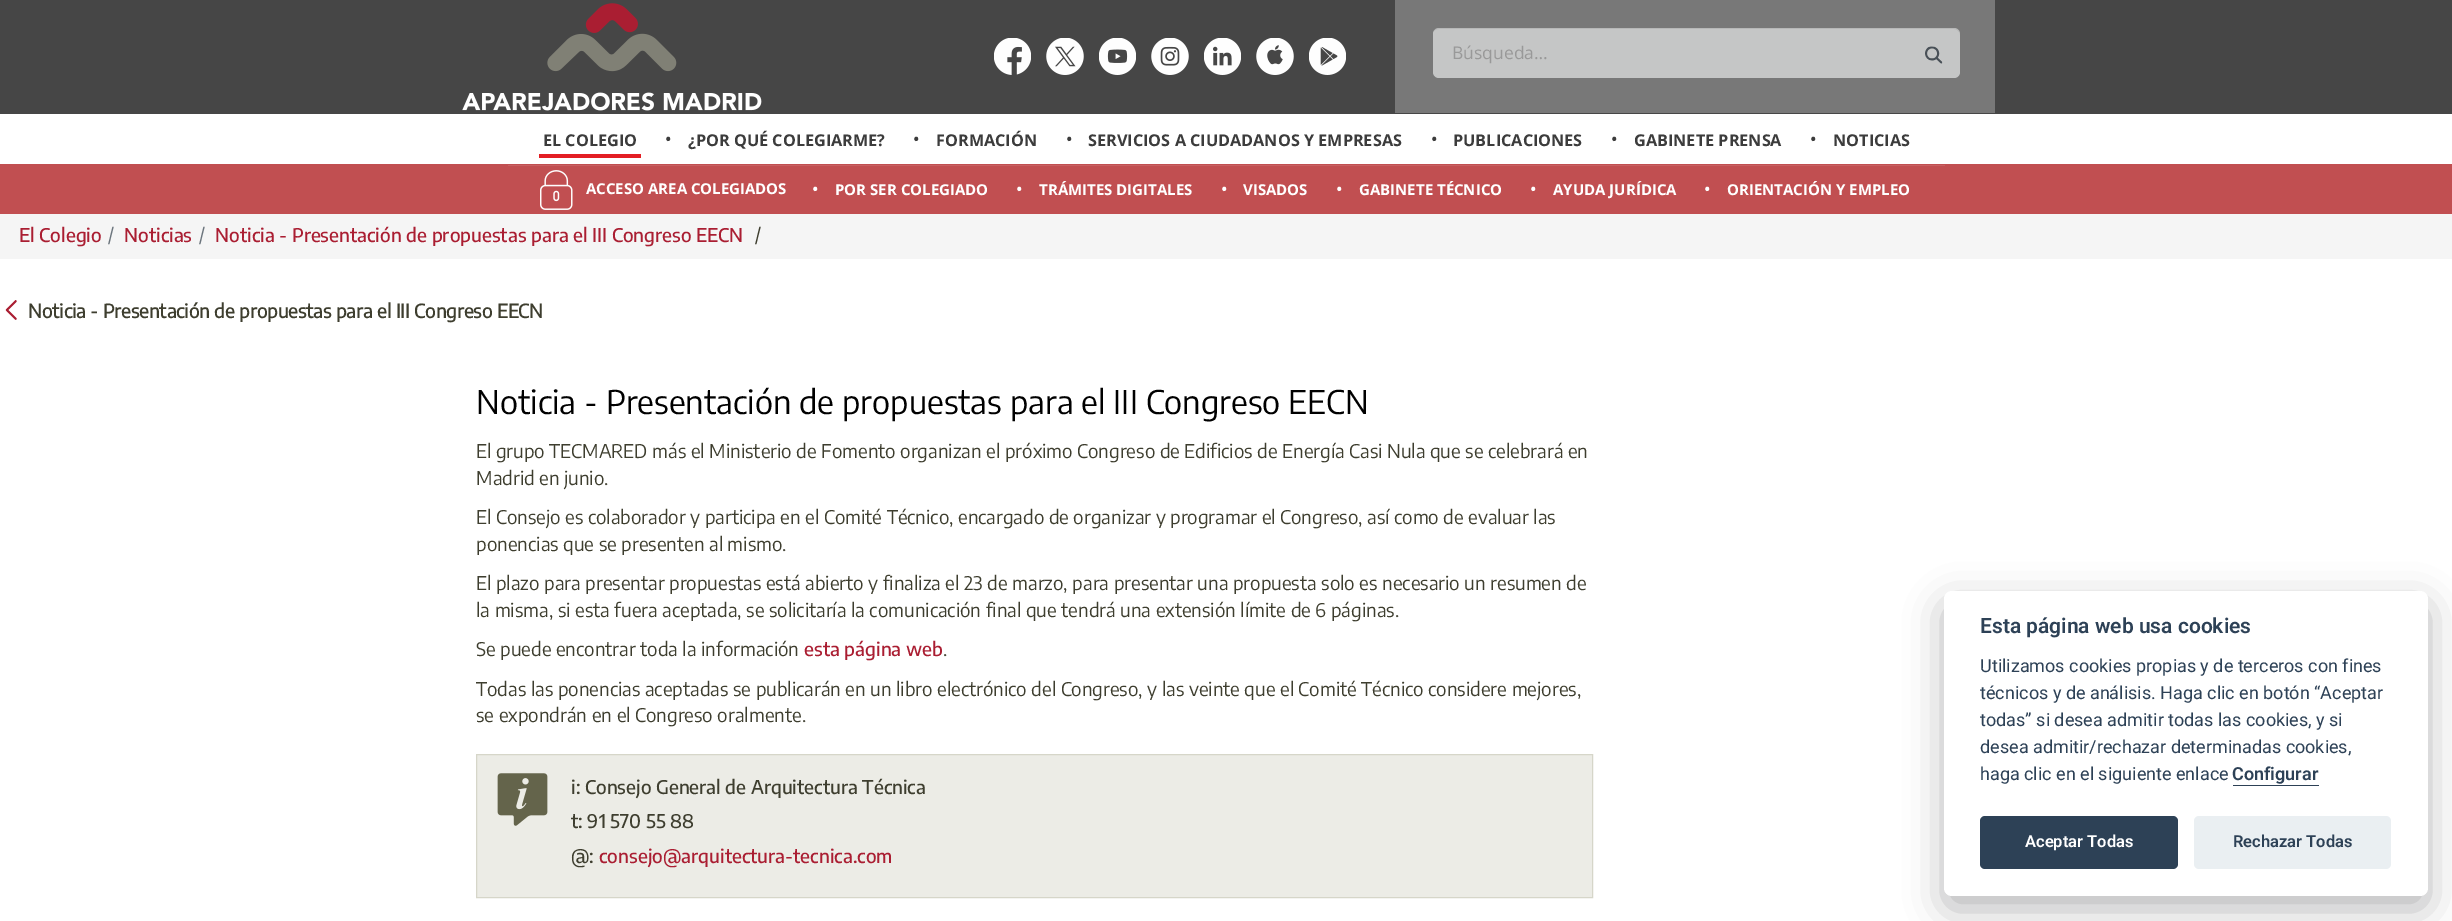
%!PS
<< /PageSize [2452 921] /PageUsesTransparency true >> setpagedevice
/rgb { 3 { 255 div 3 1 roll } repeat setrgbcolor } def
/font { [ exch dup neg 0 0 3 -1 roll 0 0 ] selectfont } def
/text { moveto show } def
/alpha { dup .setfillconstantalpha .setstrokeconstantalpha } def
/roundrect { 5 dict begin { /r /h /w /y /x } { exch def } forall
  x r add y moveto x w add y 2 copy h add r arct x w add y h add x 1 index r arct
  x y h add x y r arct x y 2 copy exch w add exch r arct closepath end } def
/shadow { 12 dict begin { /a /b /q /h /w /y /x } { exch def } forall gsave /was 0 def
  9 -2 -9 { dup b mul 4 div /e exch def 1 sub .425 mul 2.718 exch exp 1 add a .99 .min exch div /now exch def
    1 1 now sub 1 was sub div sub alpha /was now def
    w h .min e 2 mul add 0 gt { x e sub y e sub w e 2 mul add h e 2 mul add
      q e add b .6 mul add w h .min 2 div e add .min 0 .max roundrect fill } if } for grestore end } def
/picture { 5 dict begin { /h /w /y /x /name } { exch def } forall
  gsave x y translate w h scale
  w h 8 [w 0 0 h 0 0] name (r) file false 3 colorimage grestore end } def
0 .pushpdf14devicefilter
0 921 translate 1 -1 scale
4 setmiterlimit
255 255 255 rgb
0 0 2452 921 rectfill
70 70 70 rgb
0 0 2452 114 rectfill
(img_01.rgb) 462 3 300 108 picture
(img_02.rgb) 994 38 37 37 picture
(img_03.rgb) 1046 38 38 37 picture
(img_04.rgb) 1099 38 37 37 picture
(img_05.rgb) 1151 38 38 37 picture
(img_06.rgb) 1204 38 37 37 picture
(img_07.rgb) 1256 38 38 37 picture
(img_08.rgb) 1309 38 37 37 picture
120 120 120 rgb
1395 0 600 113 rectfill
197 198 198 rgb
1433 28 527 50 6 roundrect fill
0.07 alpha
0 0 0 rgb
1439 29 moveto 515 0 rlineto 3 0 6 3 6 6 rcurveto 0 -1 rlineto 0 -3 -3 -6 -6 -6 rcurveto -515 0 rlineto -2 0 -4 1 -5 3 rcurveto 1 -1 3 -2 5 -2 rcurveto closepath fill
1 alpha
(img_09.rgb) 1925 46 18 18 picture
227 30 36 rgb
539 154 102 4 rectfill
193 79 81 rgb
0 164 2452 50 rectfill
199 97 98 rgb
508 165 1437 1 rectfill
(img_10.rgb) 540 170 33 40 picture
245 245 245 rgb
0 214 2452 45 rectfill
(img_11.rgb) 5 300 12 20 picture
236 236 230 rgb
476.5 754.5 moveto 1116 0 rlineto 0 143 rlineto -1116 0 rlineto closepath gsave fill grestore
214 214 201 rgb
stroke
(img_12.rgb) 497 773 51 53 picture
2 2 3 rgb
1944 604 484 305 8 19 0.28 shadow
255 255 255 rgb
1944 591 484 305 8 roundrect fill
45 65 86 rgb
2233 785 86 1 rectfill
1980 816 198 53 5 roundrect fill
234 239 242 rgb
2194 816 197 53 5 roundrect fill
/OpenSans-Regular 17.5 font
153 153 153 rgb
(Búsqueda…) 1452 59 text
/OpenSans-Bold 16.25 font
60 60 60 rgb
(EL COLEGIO) 543 146 text
/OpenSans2-Bold 16.25 font
(•) 665 145 text
/OpenSans-Bold 16.25 font
(¿POR QUÉ COLEGIARME?) 688 146 text
/OpenSans2-Bold 16.25 font
(•) 913 145 text
/OpenSans-Bold 16.25 font
(FORMACIÓN) 936 146 text
/OpenSans2-Bold 16.25 font
(•) 1066 145 text
/OpenSans-Bold 16.25 font
(SERVICIOS A CIUDADANOS Y EMPRESAS) 1088 146 text
/OpenSans2-Bold 16.25 font
(•) 1431 145 text
/OpenSans-Bold 16.25 font
(PUBLICACIONES) 1453 146 text
/OpenSans2-Bold 16.25 font
(•) 1611 145 text
/OpenSans-Bold 16.25 font
(GABINETE PRENSA) 1634 146 text
/OpenSans2-Bold 16.25 font
(•) 1810 145 text
/OpenSans-Bold 16.25 font
(NOTICIAS) 1833 146 text
/OpenSans-Bold 15 font
255 255 255 rgb
(ACCESO AREA COLEGIADOS) 586 194 text
/OpenSans2-Bold 16.25 font
(•) 812 195 text
/OpenSans-Bold 15 font
(POR SER COLEGIADO) 835 195 text
/OpenSans2-Bold 16.25 font
(•) 1016 195 text
/OpenSans-Bold 15 font
(TRÁMITES DIGITALES) 1039 195 text
/OpenSans2-Bold 16.25 font
(•) 1221 195 text
/OpenSans-Bold 15 font
(VISADOS) 1243 195 text
/OpenSans2-Bold 16.25 font
(•) 1336 195 text
/OpenSans-Bold 15 font
(GABINETE TÉCNICO) 1359 195 text
/OpenSans2-Bold 16.25 font
(•) 1530 195 text
/OpenSans-Bold 15 font
(AYUDA JURÍDICA) 1553 195 text
/OpenSans2-Bold 16.25 font
(•) 1704 195 text
/OpenSans-Bold 15 font
(ORIENTACIÓN Y EMPLEO) 1727 195 text
/EncodeSans-Medium 18.75 font
170 30 50 rgb
(El Colegio) 19 242 text
/EncodeSans-Regular 18.75 font
108 117 125 rgb
(/) 108 242 text
/EncodeSans-Medium 18.75 font
170 30 50 rgb
(Noticias) 124 242 text
/EncodeSans-Regular 18.75 font
108 117 125 rgb
(/) 199 242 text
/EncodeSans-Medium 18.75 font
170 30 50 rgb
(Noticia - Presentación de propuestas para el III Congreso EECN) 215 242 text
/EncodeSans-Regular 18.75 font
62 62 47 rgb
(/) 755 242 text
/EncodeSans-Bold 18.75 font
(Noticia - Presentación de propuestas para el III Congreso EECN) 28 318 text
/EncodeSans-Regular 32.5 font
0 0 0 rgb
(Noticia - Presentación de propuestas para el III Congreso EECN) 476 414 text
/EncodeSans-Regular 18.75 font
62 62 47 rgb
(El grupo TECMARED más el Ministerio de Fomento organizan el próximo Congreso de Edificios de Energía Casi Nula que se celebrará en) 476 458 text
(Madrid en junio.) 476 485 text
(El Consejo es colaborador y participa en el Comité Técnico, encargado de organizar y programar el Congreso, así como de evaluar las) 476 524 text
(ponencias que se presenten al mismo.) 476 551 text
(El plazo para presentar propuestas está abierto y finaliza el 23 de marzo, para presentar una propuesta solo es necesario un resumen de) 476 590 text
(la misma, si esta fuera aceptada, se solicitaría la comunicación final que tendrá una extensión límite de 6 páginas.) 476 617 text
(Se puede encontrar toda la información) 476 656 text
/EncodeSans-Medium 18.75 font
170 30 50 rgb
(esta página web) 804 656 text
/EncodeSans-Regular 18.75 font
62 62 47 rgb
(.) 943 656 text
(Todas las ponencias aceptadas se publicarán en un libro electrónico del Congreso, y las veinte que el Comité Técnico considere mejores,) 476 696 text
(se expondrán en el Congreso oralmente.) 476 722 text
/EncodeSans-Medium 18.75 font
(i: Consejo General de Arquitectura Técnica) 571 794 text
(t: 91 570 55 88) 571 828 text
(@:) 571 863 text
170 30 50 rgb
(consejo@arquitectura-tecnica.com) 599 863 text
/Roboto-SemiBold 21 font
45 65 86 rgb
(Esta página web usa cookies) 1980 633 text
/Roboto-Regular 18 font
(Utilizamos cookies propias y de terceros con fines) 1980 672 text
(técnicos y de análisis. Haga clic en botón “Aceptar) 1980 699 text
(todas” si desea admitir todas las cookies, y si) 1980 726 text
(desea admitir/rechazar determinadas cookies,) 1980 753 text
(haga clic en el siguiente enlace) 1980 780 text
/Roboto-SemiBold 18 font
(Configurar) 2232 780 text
/Roboto-SemiBold 16.5 font
255 255 255 rgb
(Aceptar Todas) 2025 847 text
45 65 86 rgb
(Rechazar Todas) 2233 847 text
.poppdf14devicefilter showpage
